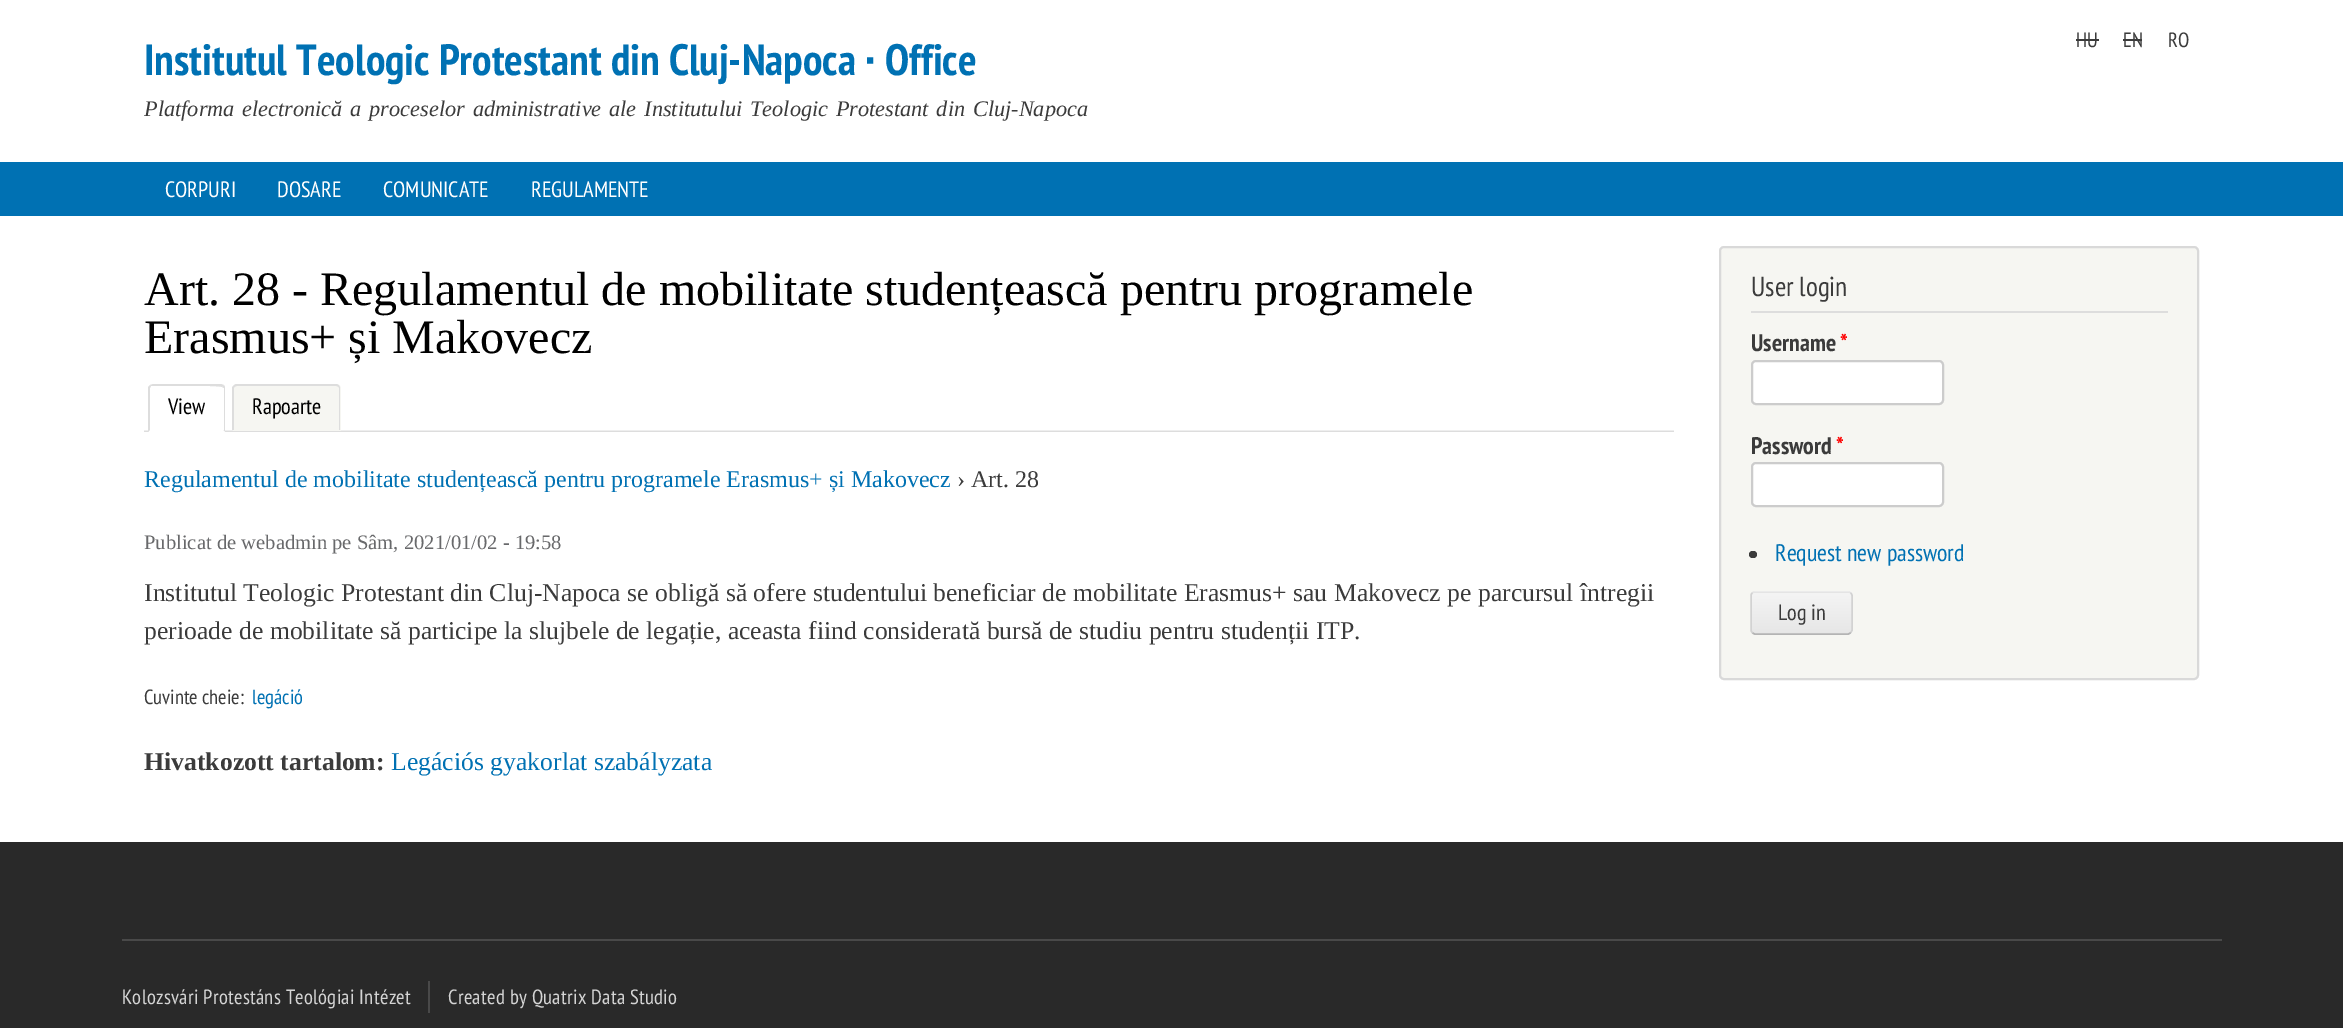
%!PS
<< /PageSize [2343 1028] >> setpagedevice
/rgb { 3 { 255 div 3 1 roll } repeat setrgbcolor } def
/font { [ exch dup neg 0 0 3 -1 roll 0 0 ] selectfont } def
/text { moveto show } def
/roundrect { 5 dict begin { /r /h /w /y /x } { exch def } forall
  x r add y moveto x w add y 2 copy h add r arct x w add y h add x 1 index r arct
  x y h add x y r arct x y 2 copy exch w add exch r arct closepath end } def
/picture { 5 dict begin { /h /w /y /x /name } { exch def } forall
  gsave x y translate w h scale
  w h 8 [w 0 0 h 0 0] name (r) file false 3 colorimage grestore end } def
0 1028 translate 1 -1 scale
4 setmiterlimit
255 255 255 rgb
0 0 2343 1028 rectfill
59 59 59 rgb
2076 39 23 2 rectfill
2123 39 19 2 rectfill
0 113 179 rgb
0 162 2343 54 rectfill
(img_01.rgb) 144 430 1530 2 picture
255 255 255 rgb
154 384 moveto 66 0 rlineto 3 0 5 2 5 5 rcurveto 0 43 rlineto -76 0 rlineto 0 -43 rlineto 0 -3 2 -5 5 -5 rcurveto closepath fill
221 221 221 rgb
153 384 moveto -3 1 rlineto 1 1 rlineto 1 0 69 -1 71 1 rcurveto 2 -2 rlineto -1 0 -2 -1 -4 -1 rcurveto closepath fill
225 432 moveto 0 -45 rlineto -1 -2 rlineto -2 2 rlineto 2 1 rlineto 0 42 rlineto -1 0 rlineto closepath fill
255 255 255 rgb
225 432 moveto -2 -2 rlineto -73 0 rlineto -2 2 rlineto closepath fill
221 221 221 rgb
148 432 moveto 0 -45 rlineto 2 -2 rlineto 1 1 rlineto -1 2 rlineto 0 42 rlineto closepath fill
246 246 242 rgb
238 384 moveto 98 0 rlineto 3 0 5 2 5 5 rcurveto 0 42 rlineto -108 0 rlineto 0 -42 rlineto 0 -3 2 -5 5 -5 rcurveto closepath fill
221 221 221 rgb
237 384 moveto 99 0 rlineto 2 0 4 2 4 4 rcurveto 0 42 rlineto -108 0 rlineto 0 -42 rlineto 0 -2 3 -4 5 -4 rcurveto closepath 237 386 moveto 99 0 rlineto 2 0 3 1 3 2 rcurveto 0 42 rlineto -105 0 rlineto 0 -42 rlineto 0 -1 1 -2 3 -2 rcurveto closepath eofill
246 246 242 rgb
1720 247 478 432 4 roundrect gsave fill grestore
217 217 217 rgb
2 setlinewidth
stroke
221 221 221 rgb
1751 311 417 2 rectfill
255 255 255 rgb
1752 361 191 43 4 roundrect gsave fill grestore
204 204 204 rgb
stroke
255 255 255 rgb
1752 463 191 43 4 roundrect gsave fill grestore
204 204 204 rgb
stroke
59 59 59 rgb
1749 551 8 7 3.5 roundrect fill
255 255 255 rgb
1751 591 102 44 5 roundrect fill
(img_02.rgb) 1751 592 102 43 picture
228 228 228 rgb
1.5 setlinewidth
1752.5 593 moveto 0.5 -1 1.5 -1 2.5 -1 rcurveto 93 0 rlineto 1 0 2 0 2.5 1 rcurveto stroke
210 210 210 rgb
1850.5 593 moveto 1 0.5 1.5 1.5 1.5 2.5 rcurveto 0 34.5 rlineto 0 1 -0.5 2 -1.5 2.5 rcurveto stroke
180 180 180 rgb
1850.5 632.5 moveto -0.5 1 -1.5 1.5 -2.5 1.5 rcurveto -93 0 rlineto -1 0 -2 -0.5 -2.5 -1.5 rcurveto stroke
210 210 210 rgb
1752.5 632.5 moveto -1 -0.5 -1.5 -1.5 -1.5 -2.5 rcurveto 0 -34.5 rlineto 0 -1 0.5 -2 1.5 -2.5 rcurveto stroke
41 41 41 rgb
0 842 2343 186 rectfill
73 73 73 rgb
122 939 2100 2 rectfill
428 981 2 32 rectfill
/PTSansNarrow-Regular 20.6 font
59 59 59 rgb
(HU) 2076 47 text
(EN) 2123 47 text
(RO) 2168 47 text
/PTSansNarrow-Bold 43.75 font
0 113 179 rgb
(Institutul Teologic Protestant din Cluj-Napoca) 144 75 text
/LiberationSans-Bold 43.75 font
(∙) 864 75 text
/PTSansNarrow-Bold 43.75 font
(Office) 885 75 text
/LiberationSerif-Italic 22.3 font
59 59 59 rgb
144 116 moveto 2.25 0 32 (Platforma electronică a proceselor administrative ale Institutului Teologic Protestant din Cluj-Napoca) widthshow
/PTSansNarrow-Regular 22.3 font
255 255 255 rgb
(CORPURI) 165 197 text
(DOSARE) 277 197 text
(COMUNICATE) 383 197 text
(REGULAMENTE) 531 197 text
/LiberationSerif-Regular 48 font
0 0 0 rgb
(Art. 28 - Regulamentul de mobilitate studențească pentru programele) 144 305 text
(Erasmus+ și Makovecz) 144 353 text
/PTSansNarrow-Regular 22.3 font
(View) 168 414 text
(Rapoarte) 252 414 text
/LiberationSerif-Regular 24 font
0 113 179 rgb
(Regulamentul de mobilitate studențească pentru programele Erasmus+ și Makovecz) 144 487 text
59 59 59 rgb
(› Art. 28) 957 487 text
/LiberationSerif-Regular 20.6 font
104 105 107 rgb
(Publicat de webadmin pe Sâm, 2021/01/02 - 19:58) 144 549 text
/LiberationSerif-Regular 25.7 font
59 59 59 rgb
(Institutul Teologic Protestant din Cluj-Napoca se obligă să ofere studentului beneficiar de mobilitate Erasmus+ sau Makovecz pe parcursul întregii) 144 601 text
(perioade de mobilitate să participe la slujbele de legație, aceasta fiind considerată bursă de studiu pentru studenții ITP.) 144 639 text
/PTSansNarrow-Regular 20.5 font
(Cuvinte cheie:) 144 704 text
0 113 179 rgb
(legáció) 252 704 text
/LiberationSerif-Bold 25.7 font
59 59 59 rgb
(Hivatkozott tartalom:) 144 770 text
/LiberationSerif-Regular 25.7 font
0 113 179 rgb
(Legációs gyakorlat szabályzata) 391 770 text
/PTSansNarrow-Regular 27.5 font
59 59 59 rgb
(User login) 1751 296 text
/PTSansNarrow-Bold 24 font
(Username) 1751 351 text
255 0 0 rgb
(*) 1840 351 text
59 59 59 rgb
(Password) 1751 454 text
255 0 0 rgb
(*) 1836 454 text
/PTSansNarrow-Regular 24 font
0 113 179 rgb
(Request new password) 1775 561 text
/PTSansNarrow-Regular 22.3 font
59 59 59 rgb
(Log in) 1778 620 text
/PTSansNarrow-Regular 20.6 font
212 212 212 rgb
122 1004 moveto 0.3 0 (Kolozsvári Protestáns Teológiai Intézet) ashow
448 1004 moveto 0.3 0 (Created by Quatrix Data Studio) ashow
showpage
